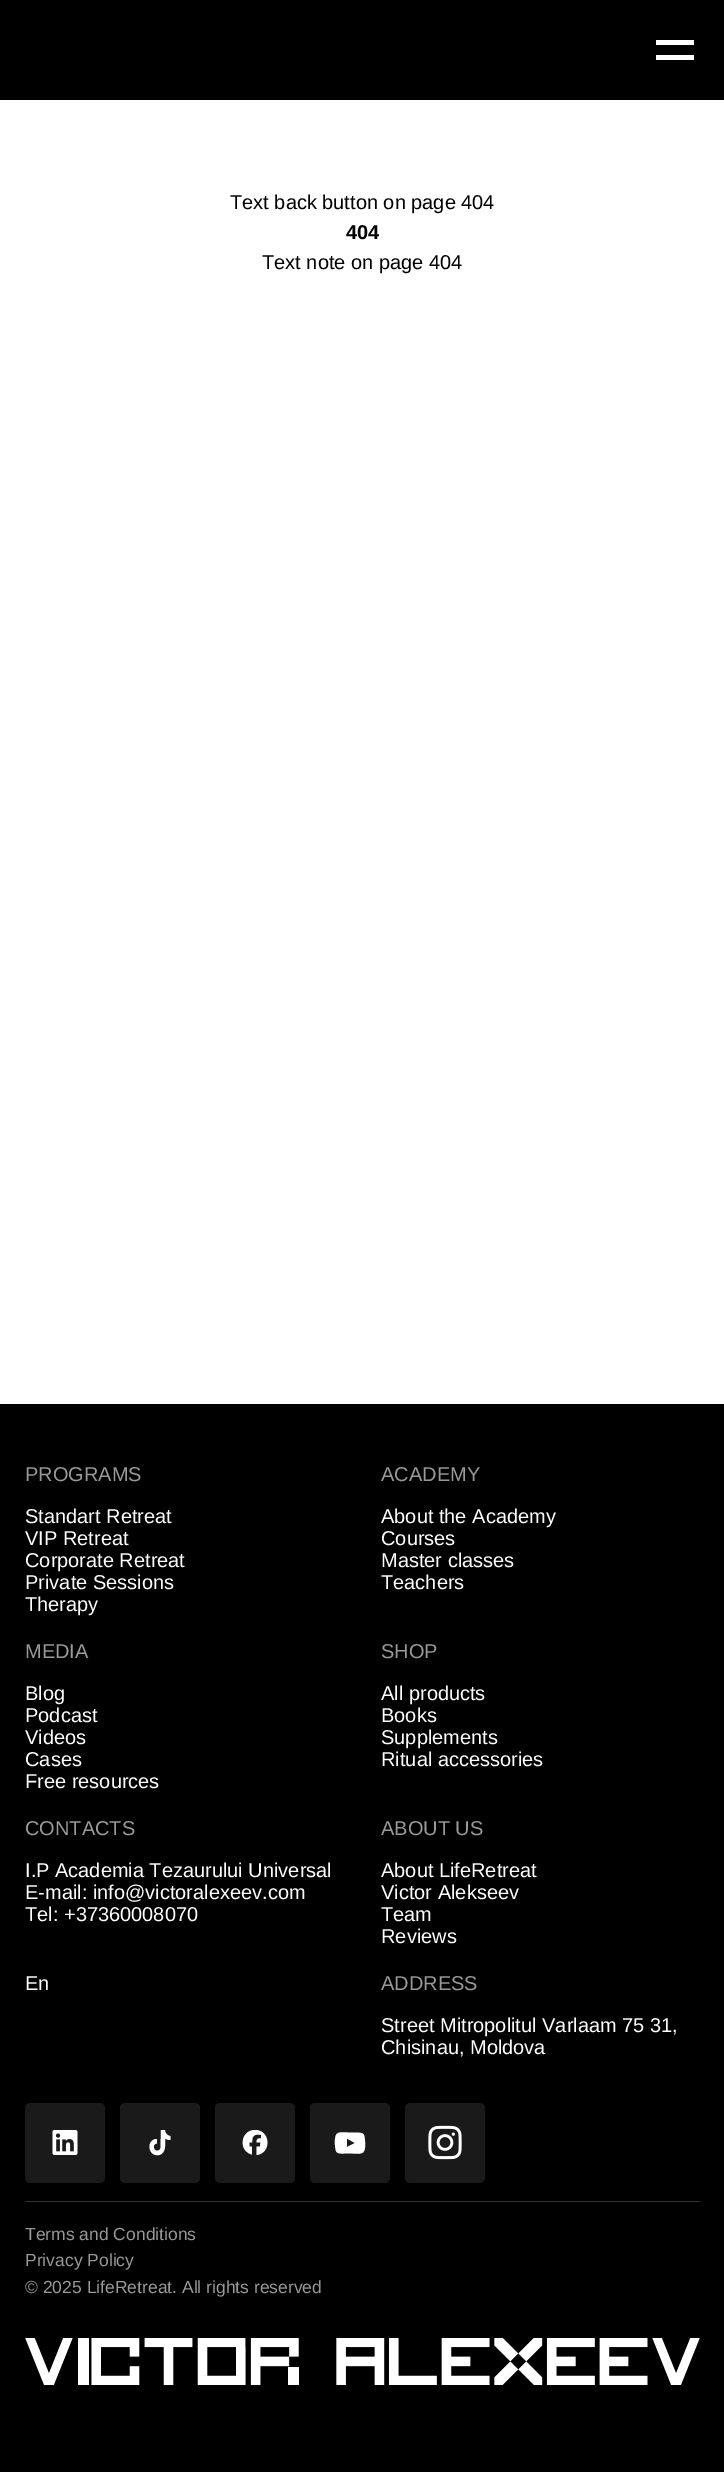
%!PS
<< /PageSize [724 2472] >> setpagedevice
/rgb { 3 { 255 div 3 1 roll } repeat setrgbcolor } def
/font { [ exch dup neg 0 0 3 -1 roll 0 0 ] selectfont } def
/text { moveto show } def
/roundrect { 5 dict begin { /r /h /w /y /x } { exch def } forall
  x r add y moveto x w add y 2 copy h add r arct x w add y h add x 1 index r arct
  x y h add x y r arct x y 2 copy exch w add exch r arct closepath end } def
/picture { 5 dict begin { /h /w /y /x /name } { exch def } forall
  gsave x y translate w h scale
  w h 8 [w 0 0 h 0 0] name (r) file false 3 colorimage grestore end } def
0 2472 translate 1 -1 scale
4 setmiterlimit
255 255 255 rgb
0 0 724 2472 rectfill
0 0 0 rgb
0 0 724 100 rectfill
255 255 255 rgb
656 40 38 5 rectfill
656 55 38 5 rectfill
0 0 0 rgb
0 1404 724 1068 rectfill
51 51 51 rgb
25 2201 675 1 rectfill
(img_01.rgb) 25 2103 80 80 picture
26 26 26 rgb
120 2103 80 80 5 roundrect fill
255 255 255 rgb
165 2130 moveto -4 0 rlineto -0.5 18 rlineto 0 1 -1 2 -2 2.5 rcurveto -5 2 -7 -7 -1.5 -7 rcurveto 0 -4.5 rlineto -11 0 -9.5 18 2 16 rcurveto 7.5 -2 6 -11 6 -16.5 rcurveto 1.5 1 3.5 1.5 5.5 1.5 rcurveto 0 -4 rlineto -3 0 -5.5 -3 -5.5 -6 rcurveto closepath fill
26 26 26 rgb
215 2103 80 80 5 roundrect fill
255 255 255 rgb
255 2130 moveto -14.5 0 -17 21 -3 24.5 rcurveto 0 -8 rlineto -2.5 0 rlineto 0 -4 rlineto 2.5 0 rlineto 0.5 -4.5 rlineto 1 -3.5 5 -4 8.5 -3 rcurveto 0 3.5 rlineto -3.5 -0.5 -4.5 0.5 -4.5 4 rcurveto 4 0 rlineto -0.5 4 rlineto -3.5 0 rlineto 0 8.5 rlineto 15.5 -2 14 -25 -1.5 -25 rcurveto closepath fill
26 26 26 rgb
310 2103 80 80 5 roundrect fill
255 255 255 rgb
364.5 2137 moveto -0.5 -4.5 -3.5 -4 -7.5 -4.5 rcurveto -9 0 rlineto -3 0 -7.5 -0.5 -10 0.5 rcurveto -4.5 2 -3 13 -2.5 16 rcurveto 0.5 5 4.5 4.5 8.5 4.5 rcurveto 8 0 rlineto 3 0 7.5 0.5 10 -0.5 rcurveto 4.5 -1.5 3 -12.5 2.5 -16 rcurveto closepath 347 2147 moveto 0 -8.5 rlineto 8 4.5 rlineto closepath fill
(img_02.rgb) 405 2103 80 80 picture
(img_03.rgb) 25 2338 675 47 picture
/LiberationSans-Regular 20 font
0 0 0 rgb
(Text back button on page 404) 230 209 text
/LiberationSans-Bold 20 font
(404) 346 239 text
/LiberationSans-Regular 20 font
(Text note on page 404) 262 269 text
153 153 153 rgb
(PROGRAMS) 25 1481 text
255 255 255 rgb
(Standart Retreat) 25 1523 text
(VIP Retreat) 25 1545 text
(Corporate Retreat) 25 1567 text
(Private Sessions) 25 1589 text
(Therapy) 25 1611 text
153 153 153 rgb
(ACADEMY) 381 1481 text
255 255 255 rgb
(About the Academy) 381 1523 text
(Courses) 381 1545 text
(Master classes) 381 1567 text
(Teachers) 381 1589 text
153 153 153 rgb
(MEDIA) 25 1658 text
255 255 255 rgb
(Blog) 25 1700 text
(Podcast) 25 1722 text
(Videos) 25 1744 text
(Cases) 25 1766 text
(Free resources) 25 1788 text
153 153 153 rgb
(SHOP) 381 1658 text
255 255 255 rgb
(All products) 381 1700 text
(Books) 381 1722 text
(Supplements) 381 1744 text
(Ritual accessories) 381 1766 text
153 153 153 rgb
(CONTACTS) 25 1835 text
255 255 255 rgb
(I.P Academia Tezaurului Universal) 25 1877 text
(E-mail: info@victoralexeev.com) 25 1899 text
(Tel: +37360008070) 25 1921 text
153 153 153 rgb
(ABOUT US) 381 1835 text
255 255 255 rgb
(About LifeRetreat) 381 1877 text
(Victor Alekseev) 381 1899 text
(Team) 381 1921 text
(Reviews) 381 1943 text
(En) 25 1990 text
153 153 153 rgb
(ADDRESS) 381 1990 text
255 255 255 rgb
(Street Mitropolitul Varlaam 75 31,) 381 2032 text
(Chisinau, Moldova) 381 2054 text
/LiberationSans-Regular 17.5 font
153 153 153 rgb
(Terms and Conditions) 25 2240 text
(Privacy Policy) 25 2266 text
(© 2025 LifeRetreat. All rights reserved) 25 2293 text
showpage
